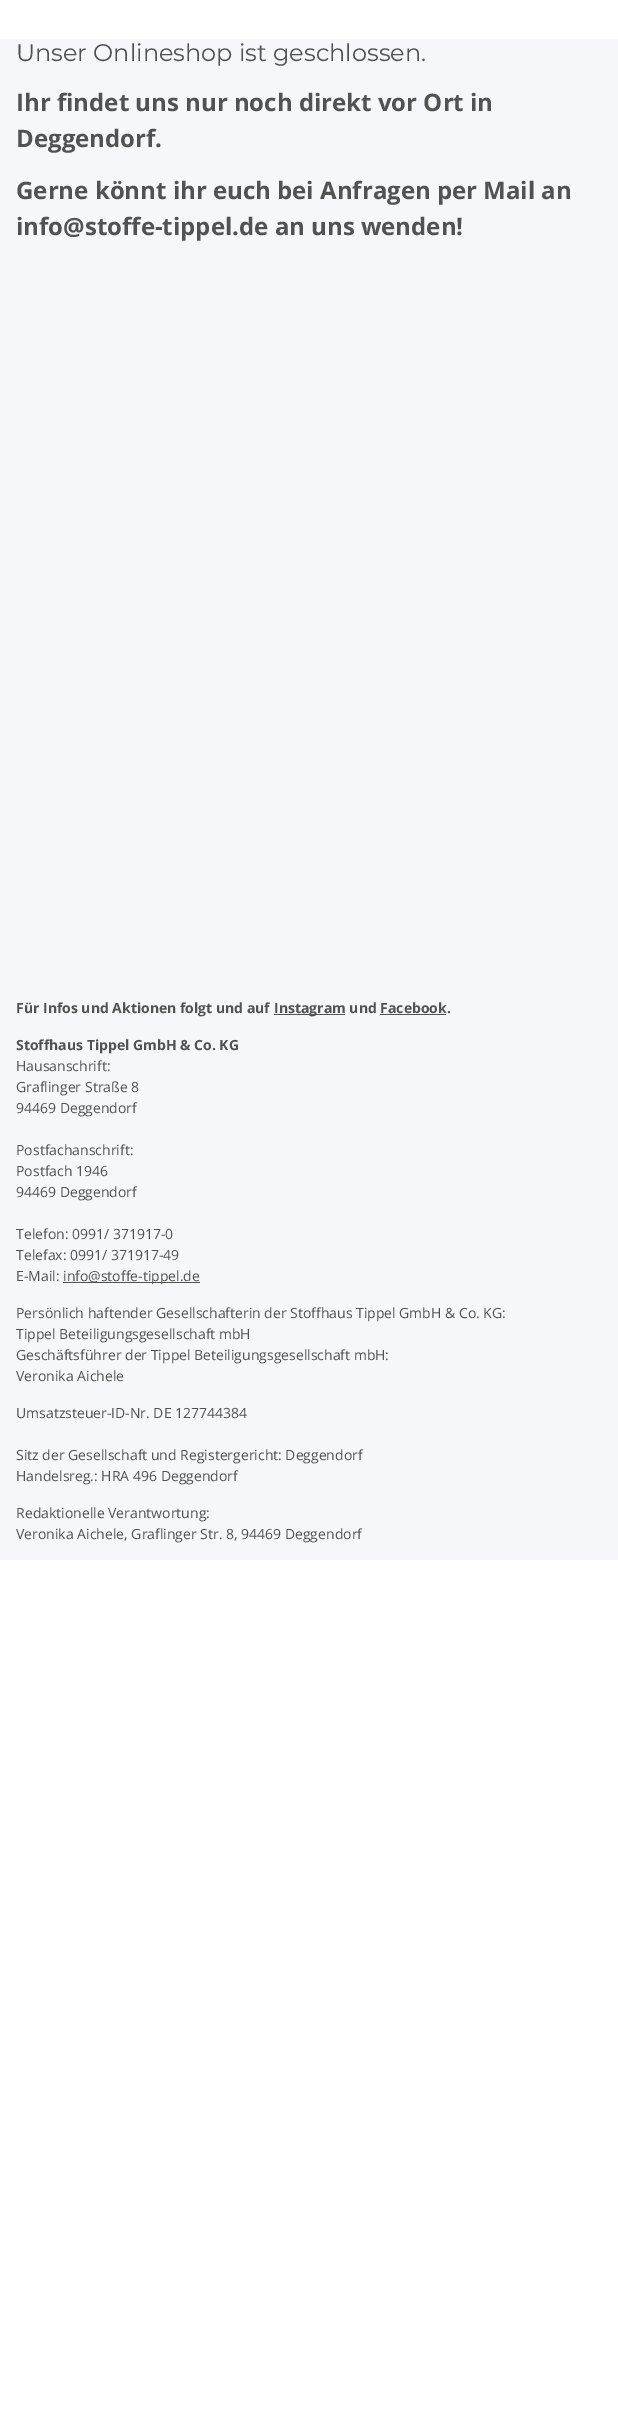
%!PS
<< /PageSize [618 2415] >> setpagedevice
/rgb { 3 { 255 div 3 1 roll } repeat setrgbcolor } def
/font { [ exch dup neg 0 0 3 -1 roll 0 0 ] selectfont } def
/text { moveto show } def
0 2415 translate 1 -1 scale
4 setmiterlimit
255 255 255 rgb
0 0 618 2415 rectfill
245 247 250 rgb
0 39 618 1521 rectfill
82 82 82 rgb
274 1014 71 1 rectfill
380 1014 66 1 rectfill
63 1282 137 1 rectfill
/Montserrat-Regular 24 font
(Unser Onlineshop ist geschlossen.) 16 61 text
/OpenSans-Bold 24 font
(Ihr findet uns nur noch direkt vor Ort in) 16 111 text
(Deggendorf.) 16 147 text
(Gerne könnt ihr euch bei Anfragen per Mail an) 16 199 text
(info@stoffe-tippel.de an uns wenden!) 16 235 text
/OpenSans-Bold 14 font
(Für Infos und Aktionen folgt und auf) 16 1013 text
(Instagram und Facebook.) 274 1013 text
(Stoffhaus Tippel GmbH & Co. KG) 16 1050 text
/OpenSans-Regular 14 font
(Hausanschrift:) 16 1071 text
(Graflinger Straße 8) 16 1092 text
(94469 Deggendorf) 16 1113 text
(Postfachanschrift:) 16 1155 text
(Postfach 1946) 16 1176 text
(94469 Deggendorf) 16 1197 text
(Telefon: 0991/ 371917-0) 16 1239 text
(Telefax: 0991/ 371917-49) 16 1260 text
(E-Mail:) 16 1281 text
(info@stoffe-tippel.de) 63 1281 text
(Persönlich haftender Gesellschafterin der Stoffhaus Tippel GmbH & Co. KG:) 16 1318 text
(Tippel Beteiligungsgesellschaft mbH) 16 1339 text
(Geschäftsführer der Tippel Beteiligungsgesellschaft mbH:) 16 1360 text
(Veronika Aichele) 16 1381 text
(Umsatzsteuer-ID-Nr. DE 127744384) 16 1418 text
(Sitz der Gesellschaft und Registergericht: Deggendorf) 16 1460 text
(Handelsreg.: HRA 496 Deggendorf) 16 1481 text
(Redaktionelle Verantwortung:) 16 1518 text
(Veronika Aichele, Graflinger Str. 8, 94469 Deggendorf) 16 1539 text
showpage
